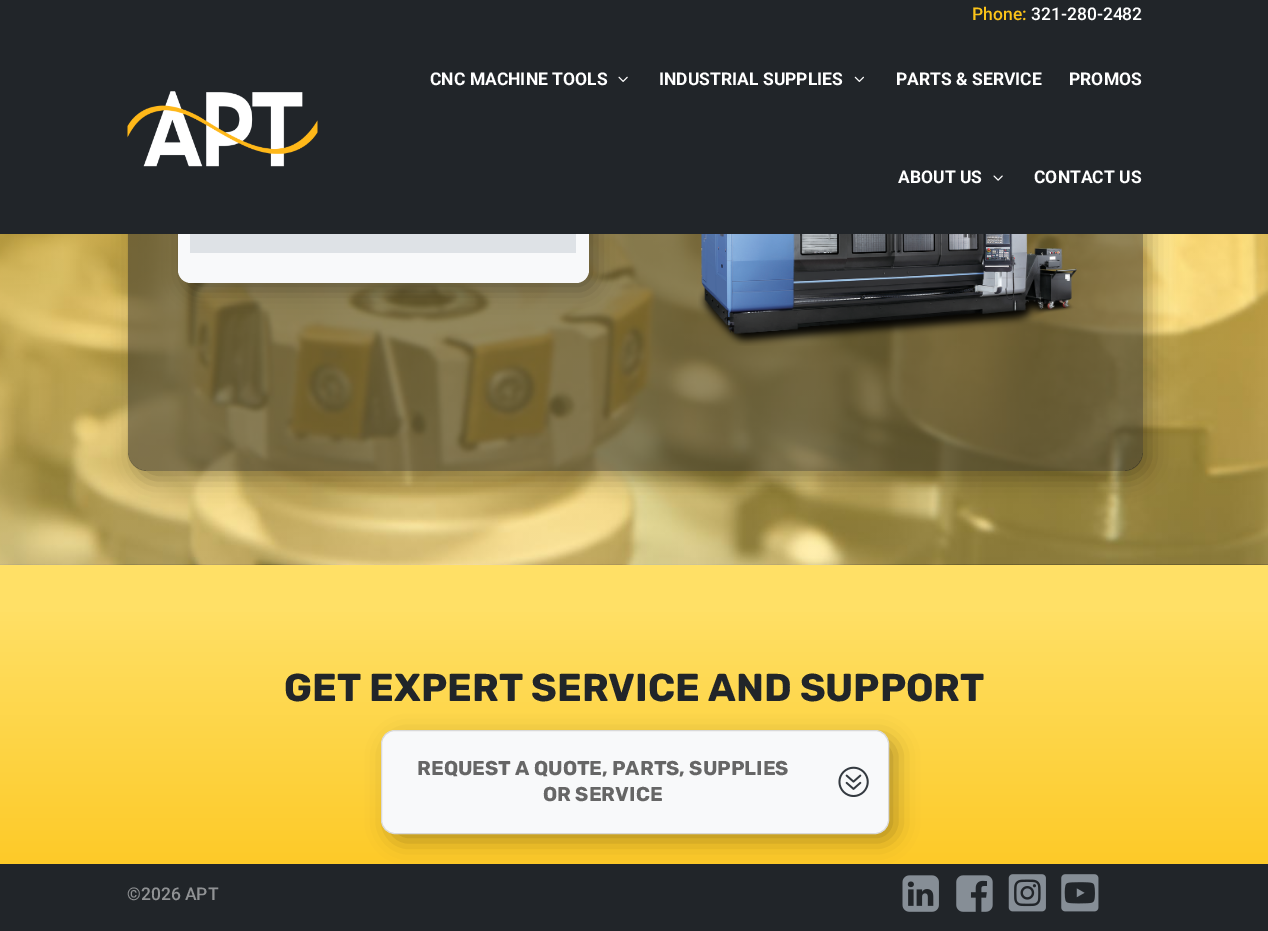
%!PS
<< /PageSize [1268 931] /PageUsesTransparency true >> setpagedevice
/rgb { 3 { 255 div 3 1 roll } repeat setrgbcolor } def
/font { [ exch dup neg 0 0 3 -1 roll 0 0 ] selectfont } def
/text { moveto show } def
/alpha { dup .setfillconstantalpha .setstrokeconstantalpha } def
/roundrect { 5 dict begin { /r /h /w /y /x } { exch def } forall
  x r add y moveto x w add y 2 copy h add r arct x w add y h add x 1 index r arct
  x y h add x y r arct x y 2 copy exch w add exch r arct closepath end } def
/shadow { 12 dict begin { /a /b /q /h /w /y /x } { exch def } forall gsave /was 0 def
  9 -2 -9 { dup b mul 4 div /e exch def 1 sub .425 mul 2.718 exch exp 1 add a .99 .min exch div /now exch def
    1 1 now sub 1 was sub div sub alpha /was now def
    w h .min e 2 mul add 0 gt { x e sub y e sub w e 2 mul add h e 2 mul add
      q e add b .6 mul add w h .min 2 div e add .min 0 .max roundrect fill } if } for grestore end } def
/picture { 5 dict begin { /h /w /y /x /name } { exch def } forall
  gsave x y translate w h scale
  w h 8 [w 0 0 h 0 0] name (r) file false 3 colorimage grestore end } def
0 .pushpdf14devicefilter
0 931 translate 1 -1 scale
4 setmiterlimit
255 255 255 rgb
0 0 1268 931 rectfill
(img_05.rgb) 0 234 1268 331 picture
gsave
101 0 moveto 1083 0 rlineto 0 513 rlineto -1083 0 rlineto closepath 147 -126 moveto 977 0 rlineto 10.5 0 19 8.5 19 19 rcurveto 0 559 rlineto 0 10.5 -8.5 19 -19 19 rcurveto -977 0 rlineto -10.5 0 -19 -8.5 -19 -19 rcurveto 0 -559 rlineto 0 -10.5 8.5 -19 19 -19 rcurveto closepath eoclip newpath
0 0 0 rgb
135 -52 1015 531 19 11 0.3 shadow
grestore
0.5 alpha
40 40 40 rgb
128 -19 1015 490 19 roundrect fill
1 alpha
0 0 0 rgb
185 176 411 114 13 11 0.3 shadow
248 249 250 rgb
178 169 411 114 13 roundrect fill
33 37 41 rgb
0 0 1268 234 rectfill
(img_01.rgb) 127 91 191 76 picture
(img_02.rgb) 618 76 10 6 picture
(img_03.rgb) 854 76 10 6 picture
(img_04.rgb) 993 175 10 6 picture
222 226 230 rgb
190 234 386 19 rectfill
(img_06.rgb) 698 234 379 112 picture
gsave 0 565 moveto 1268 0 rlineto 0 299 rlineto -1268 0 rlineto closepath clip newpath
<< /ShadingType 2 /ColorSpace /DeviceRGB /Coords [634 565 634 928] /Extend [true true] /Function << /FunctionType 3 /Domain [0 1] /Functions [<< /FunctionType 2 /Domain [0 1] /C0 [1 0.878 0.4] /C1 [1 0.878 0.4] /N 1 >> << /FunctionType 2 /Domain [0 1] /C0 [1 0.878 0.4] /C1 [0.988 0.769 0.098] /N 1 >>] /Bounds [0.12] /Encode [0 1 0 1] >> >> shfill grestore
0 0 0 rgb
389 738 507 103 14 11 0.3 shadow
248 249 250 rgb
381.5 730.5 507 103 13.5 roundrect gsave fill grestore
217 217 217 rgb
stroke
(img_07.rgb) 838 766 31 31 picture
33 37 41 rgb
0 864 1268 67 rectfill
(img_08.rgb) 902 875 37 37 picture
(img_09.rgb) 956 875 37 37 picture
(img_10.rgb) 1008 874 38 38 picture
(img_11.rgb) 1061 874 38 38 picture
/Roboto-Medium 17.5 font
252 196 25 rgb
(Phone:) 972 20 text
255 255 255 rgb
(321-280-2482) 1031 20 text
/Roboto-Bold 17.5 font
(CNC MACHINE TOOLS) 430 85 text
(INDUSTRIAL SUPPLIES) 659 85 text
(PARTS & SERVICE) 896 85 text
(PROMOS) 1069 85 text
(ABOUT US) 898 183 text
(CONTACT US) 1034 183 text
/Rubik-Bold 38.75 font
33 37 41 rgb
(GET EXPERT SERVICE AND SUPPORT) 284 701 text
/Rubik-Bold 20 font
102 102 102 rgb
(REQUEST A QUOTE, PARTS, SUPPLIES) 417 775 text
(OR SERVICE) 543 801 text
/Roboto-Medium 17.5 font
144 146 148 rgb
(©2026 APT) 127 900 text
.poppdf14devicefilter showpage
